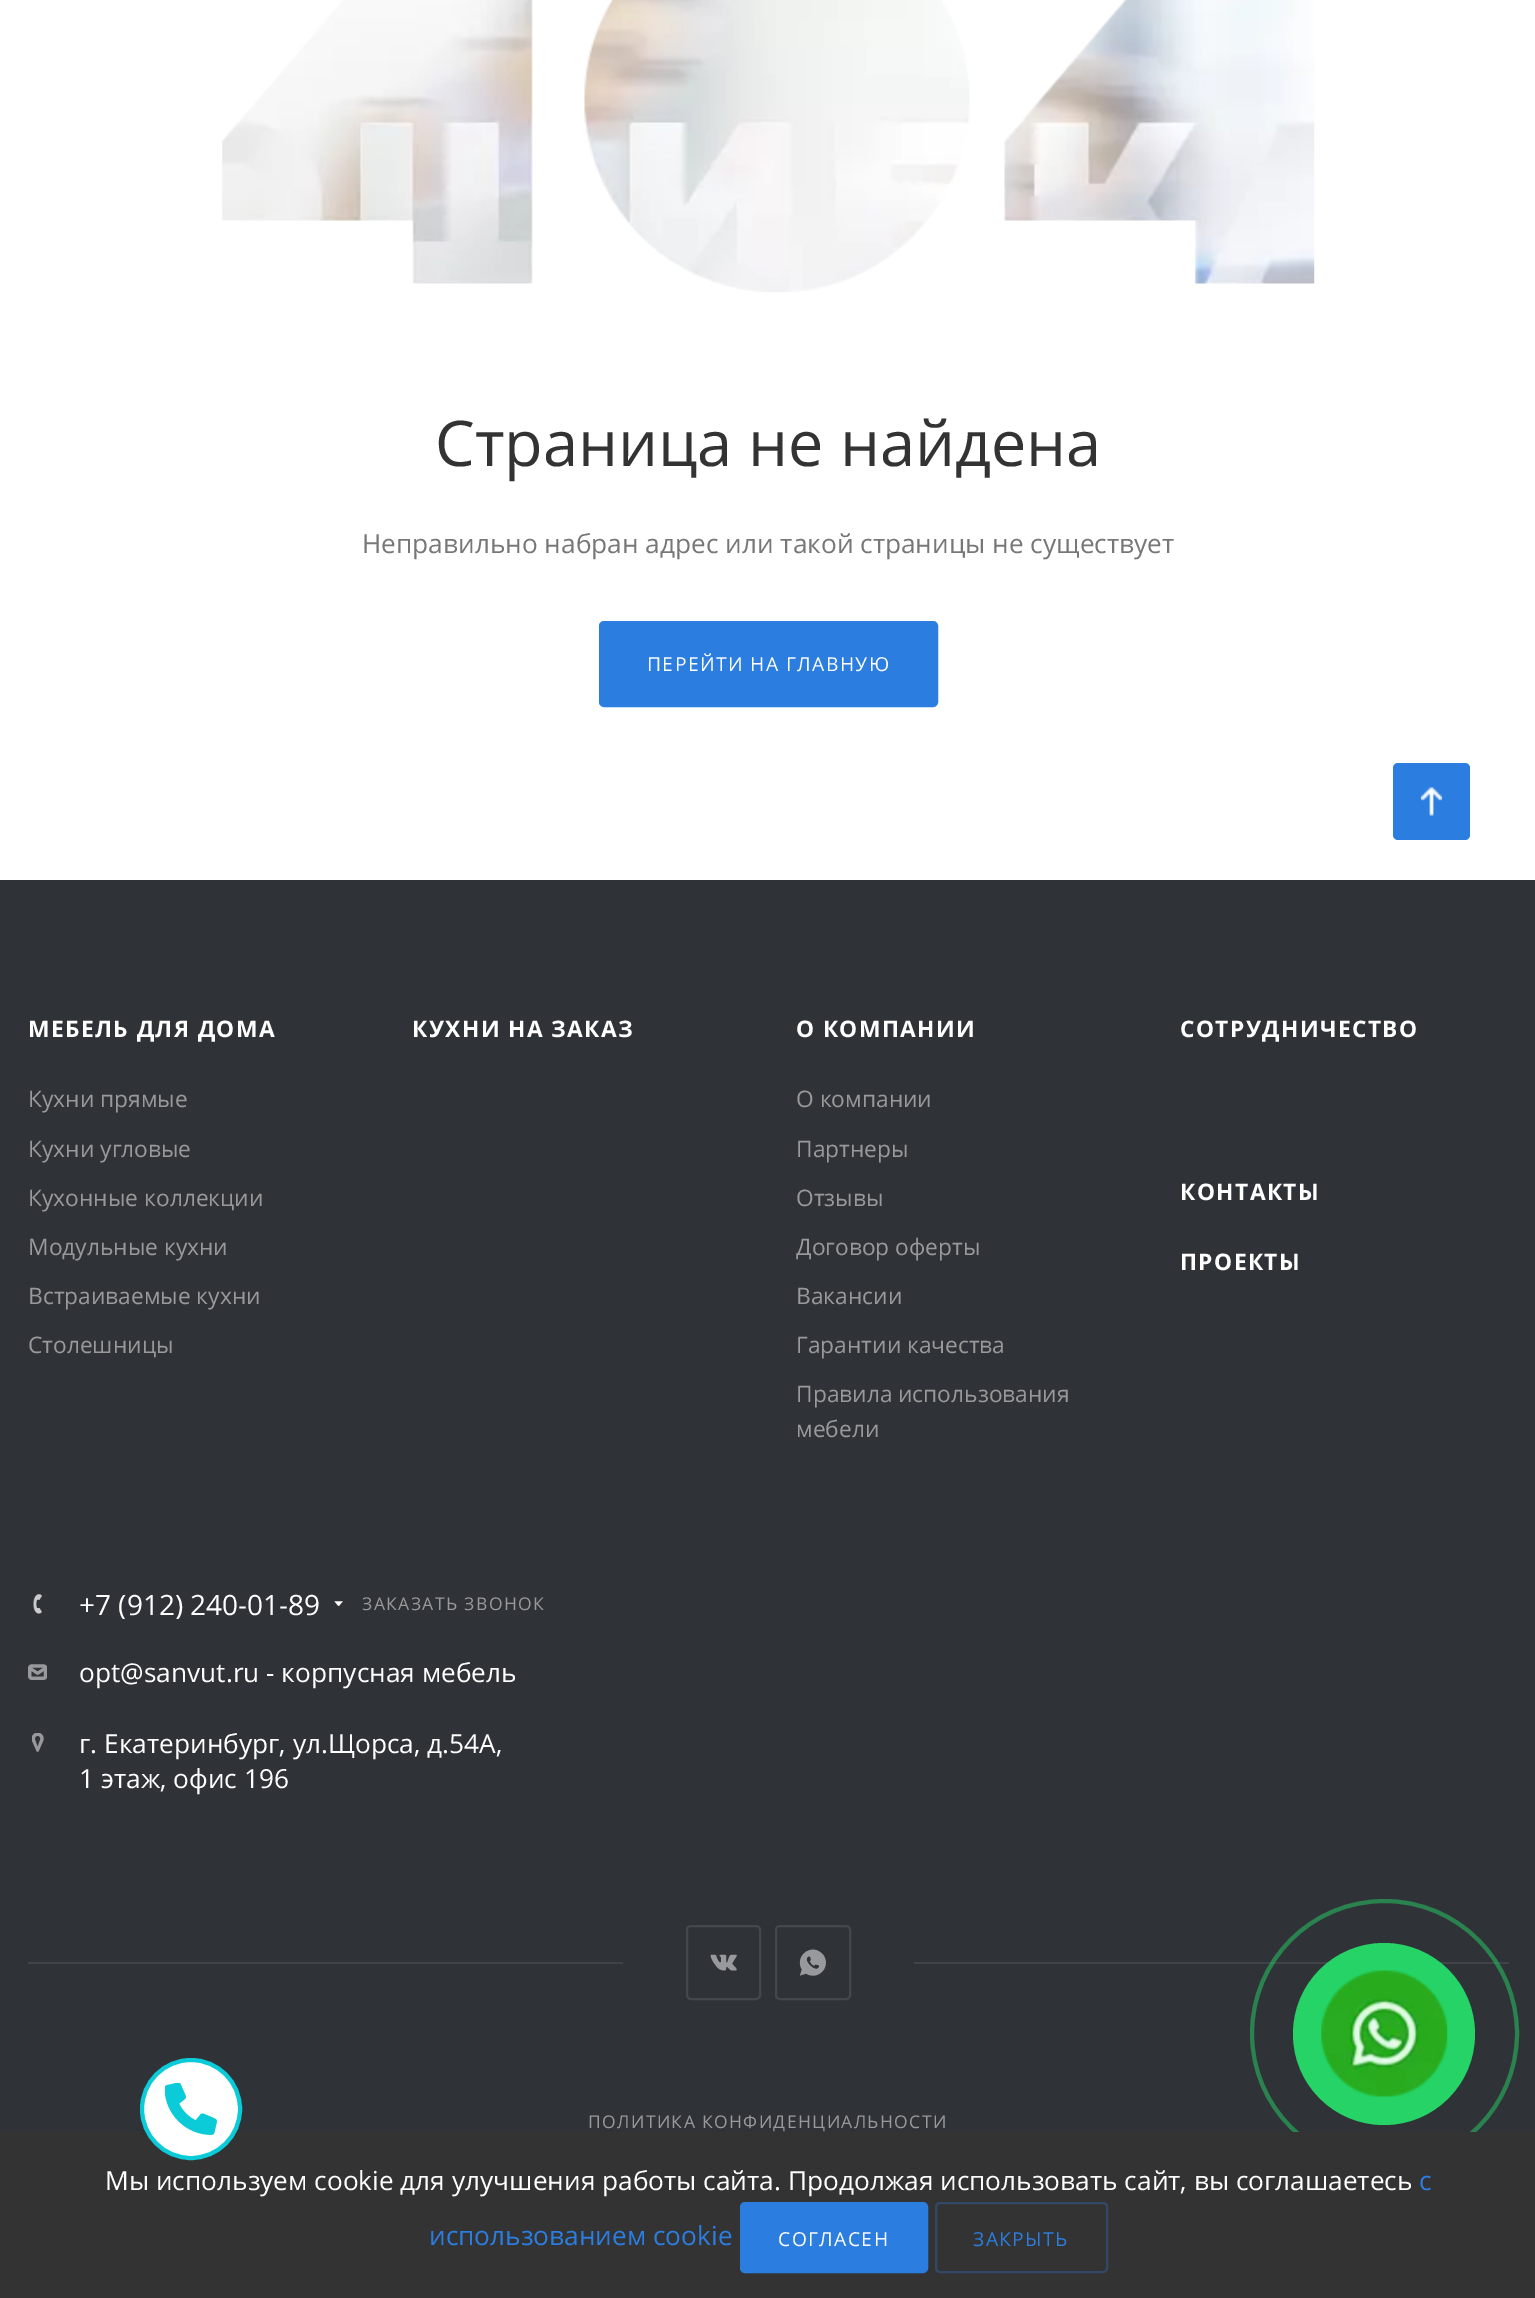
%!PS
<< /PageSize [1535 2298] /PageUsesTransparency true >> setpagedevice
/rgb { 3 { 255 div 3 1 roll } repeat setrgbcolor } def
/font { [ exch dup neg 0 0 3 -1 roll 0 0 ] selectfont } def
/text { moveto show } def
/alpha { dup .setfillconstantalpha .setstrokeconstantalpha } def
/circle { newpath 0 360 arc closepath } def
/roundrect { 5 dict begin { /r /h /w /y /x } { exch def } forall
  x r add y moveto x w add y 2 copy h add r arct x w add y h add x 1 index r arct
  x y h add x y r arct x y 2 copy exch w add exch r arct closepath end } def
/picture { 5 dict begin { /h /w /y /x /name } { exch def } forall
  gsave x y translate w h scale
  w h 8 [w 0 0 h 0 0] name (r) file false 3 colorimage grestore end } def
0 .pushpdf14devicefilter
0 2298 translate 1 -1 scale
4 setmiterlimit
255 255 255 rgb
0 0 1535 2298 rectfill
(img_01.rgb) 222 0 1093 293 picture
43 125 224 rgb
600 622 337 84 4 roundrect gsave fill grestore
2 setlinewidth
stroke
1393 763 77 77 5 roundrect fill
(img_02.rgb) 1421 787 21 29 picture
47 51 56 rgb
0 880 1535 1252 rectfill
(img_03.rgb) 33 1594 9 20 picture
(img_04.rgb) 34 1594 8 20 picture
(img_05.rgb) 334 1601 9 5 picture
(img_06.rgb) 28 1664 19 16 picture
(img_07.rgb) 32 1733 12 19 picture
64 67 72 rgb
28 1962 1481 2 rectfill
47 51 56 rgb
623 1962 291 2 rectfill
(img_08.rgb) 710 1954 27 17 picture
68 71 76 rgb
687 1926 73 73 4 roundrect stroke
(img_09.rgb) 799 1949 27 27 picture
776 1926 74 73 4 roundrect stroke
0.5 alpha
37 211 102 rgb
4 setlinewidth
1384.5 2033.5 132.5 circle stroke
1 alpha
51 51 51 rgb
0 2132 1535 166 rectfill
255 255 255 rgb
191 2109 49 circle gsave fill grestore
10 203 215 rgb
stroke
(img_10.rgb) 165 2083 52 52 picture
37 211 102 rgb
1384 2034 91 circle fill
(img_11.rgb) 1321 1970 127 127 picture
43 125 224 rgb
741 2203 186 69 4 roundrect gsave fill grestore
2 setlinewidth
stroke
49 73 103 rgb
936 2203 171 69 4 roundrect stroke
/OpenSans-Regular 63 font
51 51 51 rgb
(Страница не найдена) 435 466 text
/OpenSans-Regular 26.25 font
119 119 119 rgb
(Неправильно набран адрес или такой страницы не существует) 362 553 text
/OpenSans-Regular 19.25 font
255 255 255 rgb
647 671 moveto 1.4 0 (ПЕРЕЙТИ НА ГЛАВНУЮ) ashow
/OpenSans-Bold 22.75 font
28 1037 moveto 1.4 0 (МЕБЕЛЬ ДЛЯ ДОМА) ashow
/OpenSans-Regular 22.75 font
153 153 153 rgb
(Кухни прямые) 28 1107 text
(Кухни угловые) 28 1157 text
(Кухонные коллекции) 28 1206 text
(Модульные кухни) 28 1255 text
(Встраиваемые кухни) 28 1304 text
(Столешницы) 28 1353 text
/OpenSans-Bold 22.75 font
255 255 255 rgb
412 1037 moveto 1.4 0 (КУХНИ НА ЗАКАЗ) ashow
796 1037 moveto 1.4 0 (О КОМПАНИИ) ashow
/OpenSans-Regular 22.75 font
153 153 153 rgb
(О компании) 796 1107 text
(Партнеры) 796 1157 text
(Отзывы) 796 1206 text
(Договор оферты) 796 1255 text
(Вакансии) 796 1304 text
(Гарантии качества) 796 1353 text
(Правила использования) 796 1402 text
(мебели) 796 1437 text
/OpenSans-Bold 22.75 font
255 255 255 rgb
1180 1037 moveto 1.4 0 (СОТРУДНИЧЕСТВО) ashow
1180 1200 moveto 1.4 0 (КОНТАКТЫ) ashow
1180 1270 moveto 1.4 0 (ПРОЕКТЫ) ashow
gsave
28 1591 315 28 rectclip
/OpenSans-Regular 28 font
(+7 \(912\) 240-01-89) 79 1615 text
grestore
/OpenSans-Regular 17.5 font
153 153 153 rgb
362 1610 moveto 1.4 0 (ЗАКАЗАТЬ ЗВОНОК) ashow
/OpenSans-Regular 26.25 font
255 255 255 rgb
(opt@sanvut.ru - корпусная мебель) 79 1682 text
(г. Екатеринбург, ул.Щорса, д.54А,) 79 1753 text
(1 этаж, офис 196) 79 1788 text
/OpenSans-Regular 17.5 font
153 153 153 rgb
588 2128 moveto 1.4 0 (ПОЛИТИКА КОНФИДЕНЦИАЛЬНОСТИ) ashow
/OpenSans-Regular 26.25 font
255 255 255 rgb
(Мы используем cookie для улучшения работы сайта. Продолжая использовать сайт, вы соглашаетесь) 105 2190 text
43 125 224 rgb
(с) 1419 2190 text
(использованием cookie) 429 2245 text
/OpenSans-Regular 19.25 font
255 255 255 rgb
778 2246 moveto 1.4 0 (СОГЛАСЕН) ashow
43 125 224 rgb
973 2246 moveto 1.4 0 (ЗАКРЫТЬ) ashow
.poppdf14devicefilter showpage
